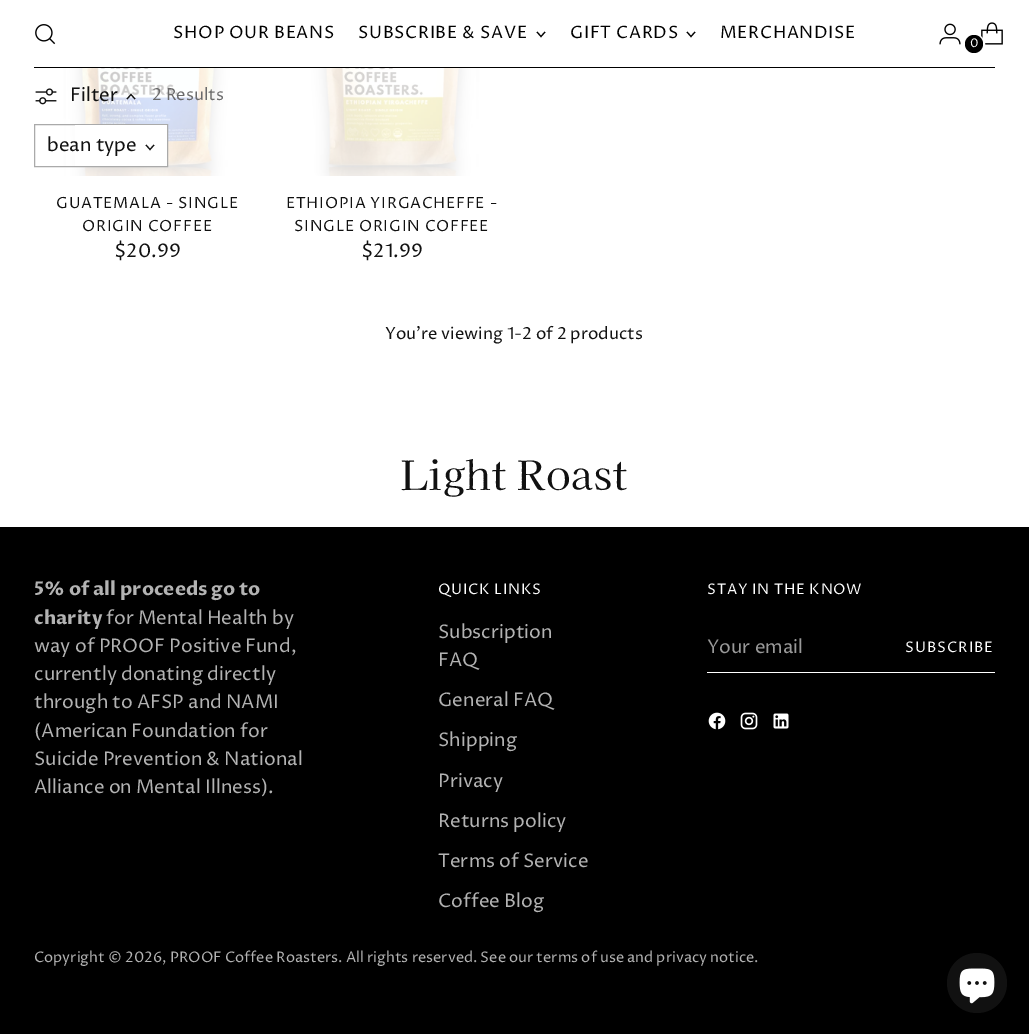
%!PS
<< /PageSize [1029 1034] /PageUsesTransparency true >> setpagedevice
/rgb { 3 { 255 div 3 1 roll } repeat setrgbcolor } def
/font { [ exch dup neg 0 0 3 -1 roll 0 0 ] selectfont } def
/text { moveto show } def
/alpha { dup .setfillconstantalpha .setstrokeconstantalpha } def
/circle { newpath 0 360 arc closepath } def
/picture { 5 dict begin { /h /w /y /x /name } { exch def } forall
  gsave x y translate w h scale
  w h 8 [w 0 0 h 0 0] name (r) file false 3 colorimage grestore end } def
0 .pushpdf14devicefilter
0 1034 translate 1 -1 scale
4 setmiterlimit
255 255 255 rgb
0 0 1029 1034 rectfill
0 0 0 rgb
34 67 961 1 rectfill
(img_01.rgb) 35 24 21 21 picture
1.1 setlinewidth
537 32 moveto 4 4.5 rlineto 4 -4.5 rlineto stroke
687 32 moveto 4 4.5 rlineto 4 -4.5 rlineto stroke
(img_02.rgb) 939 23 22 22 picture
(img_03.rgb) 981 22 22 23 picture
255 255 255 rgb
2 setlinewidth
974.5 44.5 9.5 circle stroke
0 0 0 rgb
974 44 9 circle fill
(img_05.rgb) 63 68 172 108 picture
(img_06.rgb) 307 68 173 108 picture
0.8 alpha
255 255 255 rgb
66 68 410 108 rectfill
1 alpha
(img_04.rgb) 35 88 22 17 picture
17 17 17 rgb
1.1 setlinewidth
127 99 moveto 4 -4.5 rlineto 4 4.5 rlineto stroke
170 170 170 rgb
1 setlinewidth
34.5 124.5 133 42 rectstroke
255 255 255 rgb
75 125 92 41 rectfill
17 17 17 rgb
1.1 setlinewidth
146 145 moveto 4 4.5 rlineto 4 -4.5 rlineto stroke
0 0 0 rgb
0 527 1029 507 rectfill
255 255 255 rgb
707 672 288 1 rectfill
(img_07.rgb) 708 712 18 18 picture
(img_08.rgb) 740 712 18 18 picture
(img_09.rgb) 773 713 16 16 picture
17 17 17 rgb
977 983 30 circle fill
(img_10.rgb) 959 968 36 36 picture
/ProzaLibre-Regular 17 font
0 0 0 rgb
173 38 moveto 0.7 0 (SHOP OUR BEANS) ashow
358 38 moveto 0.7 0 (SUBSCRIBE & SAVE) ashow
570 38 moveto 0.7 0 (GIFT CARDS) ashow
720 38 moveto 0.7 0 (MERCHANDISE) ashow
/ProzaLibre-Regular 12 font
255 255 255 rgb
(0) 970 47 text
/ProzaLibre-Regular 18.75 font
17 17 17 rgb
(Filter) 70 101 text
/ProzaLibre-Regular 16.6 font
106 106 107 rgb
(2 Results) 152 100 text
/ProzaLibre-Regular 18.75 font
17 17 17 rgb
(bean type) 47 151 text
/ProzaLibre-Regular 15.4 font
56 208 moveto 0.75 0 (GUATEMALA - SINGLE) ashow
82 231 moveto 0.75 0 (ORIGIN COFFEE) ashow
/ProzaLibre-Regular 18.75 font
($20.99) 114 257 text
/ProzaLibre-Regular 15.4 font
286 208 moveto 0.75 0 (ETHIOPIA YIRGACHEFFE -) ashow
294 231 moveto 0.75 0 (SINGLE ORIGIN COFFEE) ashow
/ProzaLibre-Regular 18.75 font
($21.99) 361 257 text
/ProzaLibre-Regular 16.6 font
(You’re viewing 1-2 of 2 products) 385 339 text
/KaiseiOpti-Regular 40.25 font
401 490 moveto 0.4 0 (Light Roast) ashow
/ProzaLibre-Bold 18.75 font
179 179 179 rgb
(5% of all proceeds go to) 34 595 text
(charity) 34 624 text
/ProzaLibre-Regular 18.75 font
(for Mental Health by) 106 624 text
(way of PROOF Positive Fund,) 34 652 text
(currently donating directly) 34 680 text
(through to AFSP and NAMI) 34 708 text
(\(American Foundation for) 34 737 text
(Suicide Prevention & National) 34 765 text
(Alliance on Mental Illness\).) 34 793 text
/ProzaLibre-Regular 14.55 font
255 255 255 rgb
438 594 moveto 0.75 0 (QUICK LINKS) ashow
/ProzaLibre-Regular 18.75 font
179 179 179 rgb
(Subscription) 438 638 text
(FAQ) 438 666 text
(General FAQ) 438 706 text
(Shipping) 438 746 text
(Privacy) 438 787 text
(Returns policy) 438 827 text
(Terms of Service) 438 867 text
(Coffee Blog) 438 907 text
/ProzaLibre-Regular 14.55 font
255 255 255 rgb
707 594 moveto 0.75 0 (STAY IN THE KNOW) ashow
/ProzaLibre-Regular 18.75 font
153 153 153 rgb
(Your email) 707 653 text
/ProzaLibre-Regular 14.55 font
255 255 255 rgb
905 652 moveto 1 0 (SUBSCRIBE) ashow
179 179 179 rgb
(Copyright © 2026, PROOF Coffee Roasters. All rights reserved. See our terms of use and privacy notice.) 34 962 text
.poppdf14devicefilter showpage
